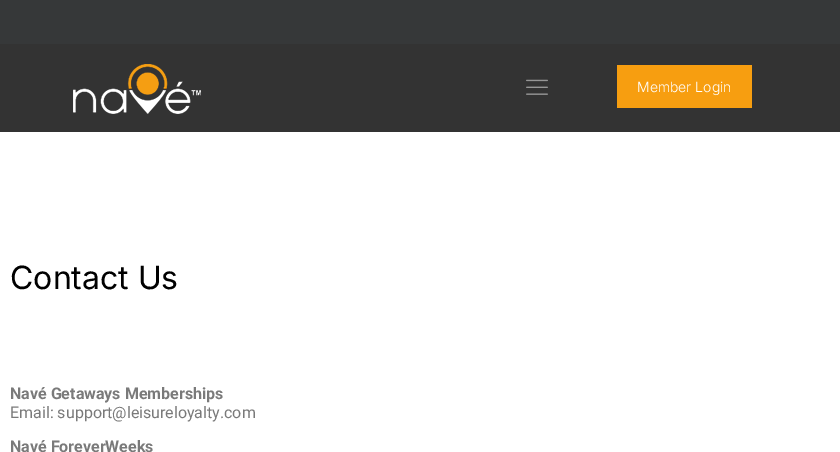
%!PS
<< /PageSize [840 452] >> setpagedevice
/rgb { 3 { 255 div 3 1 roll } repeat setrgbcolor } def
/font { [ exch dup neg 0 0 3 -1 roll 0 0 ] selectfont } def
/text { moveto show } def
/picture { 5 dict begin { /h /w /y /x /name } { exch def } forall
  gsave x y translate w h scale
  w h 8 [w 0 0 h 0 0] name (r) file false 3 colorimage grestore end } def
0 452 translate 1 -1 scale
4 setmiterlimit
255 255 255 rgb
0 0 840 452 rectfill
54 56 57 rgb
0 0 840 44 rectfill
51 51 51 rgb
0 44 840 88 rectfill
(img_01.rgb) 73 64 128 50 picture
(img_02.rgb) 526 79 22 16 picture
247 158 16 rgb
617 65 135 43 rectfill
/Inter-Light 14 font
255 255 255 rgb
(Member Login) 637 92 text
/Inter-Regular 32 font
0 0 0 rgb
(Contact Us) 10 289 text
/Roboto-Bold 16 font
122 122 122 rgb
(Navé Getaways Memberships) 10 399 text
/Roboto-Regular 16 font
(Email: support@leisureloyalty.com) 10 418 text
/Roboto-Bold 16 font
(Navé ForeverWeeks) 10 452 text
showpage
